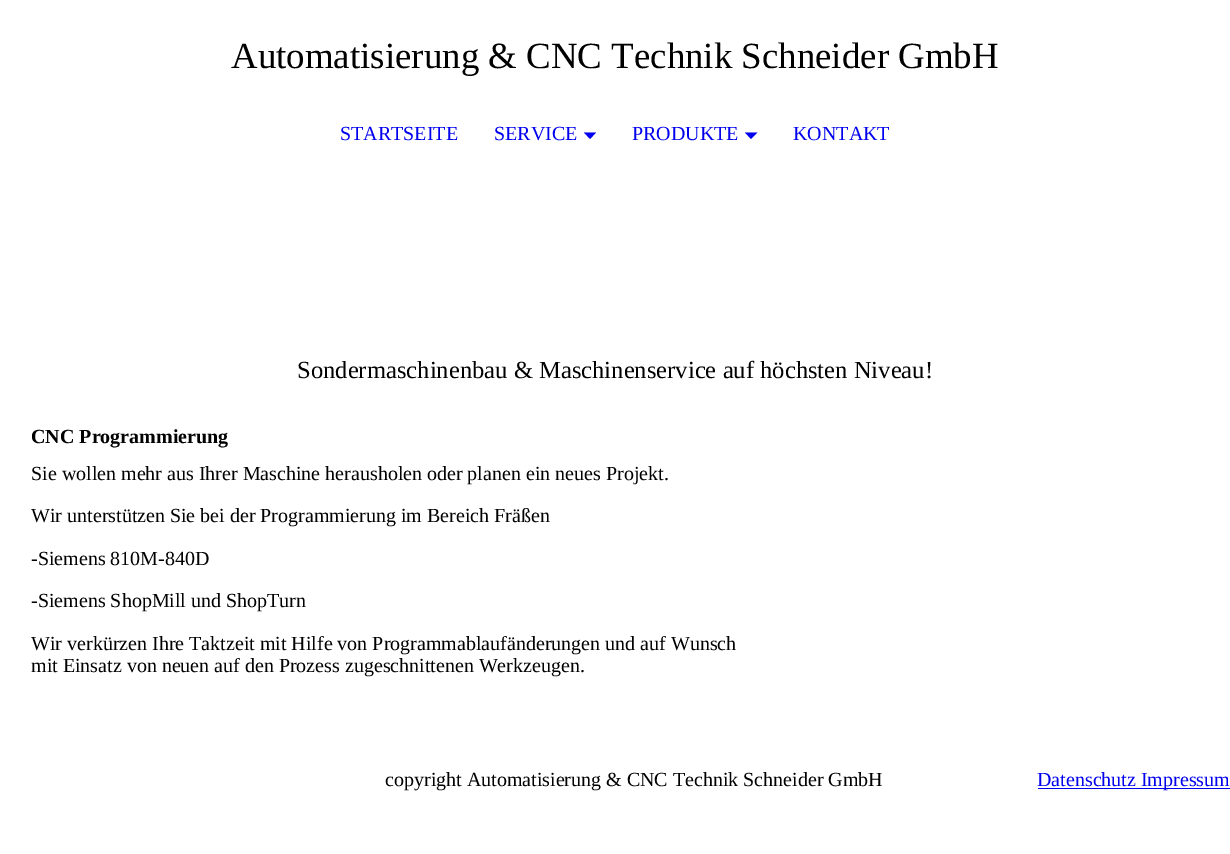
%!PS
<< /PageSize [1230 854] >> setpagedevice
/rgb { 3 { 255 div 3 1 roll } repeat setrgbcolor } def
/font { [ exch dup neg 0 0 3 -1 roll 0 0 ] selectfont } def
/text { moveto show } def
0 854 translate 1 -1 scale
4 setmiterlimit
255 255 255 rgb
0 0 1230 854 rectfill
0 0 238 rgb
584 132.5 moveto 12 0 rlineto -6 6.5 rlineto closepath fill
745 132.5 moveto 12.5 0 rlineto -6.5 6.5 rlineto closepath fill
1038 788 192 1 rectfill
/LiberationSerif-Regular 36.9 font
0 0 0 rgb
(Automatisierung & CNC Technik Schneider GmbH) 231 68 text
/LiberationSerif-Regular 20 font
0 0 238 rgb
(STARTSEITE) 340 140 text
(SERVICE) 494 140 text
(PRODUKTE) 632 140 text
(KONTAKT) 793 140 text
/LiberationSerif-Regular 24.6 font
0 0 0 rgb
(Sondermaschinenbau & Maschinenservice auf höchsten Niveau!) 297 378 text
/LiberationSerif-Bold 20 font
(CNC Programmierung) 31 443 text
/LiberationSerif-Regular 20 font
(Sie wollen mehr aus Ihrer Maschine herausholen oder planen ein neues Projekt.) 31 480 text
(Wir unterstützen Sie bei der Programmierung im Bereich Fräßen) 31 522 text
(-Siemens 810M-840D) 31 565 text
(-Siemens ShopMill und ShopTurn) 31 607 text
(Wir verkürzen Ihre Taktzeit mit Hilfe von Programmablaufänderungen und auf Wunsch) 31 650 text
(mit Einsatz von neuen auf den Prozess zugeschnittenen Werkzeugen.) 31 672 text
(copyright Automatisierung & CNC Technik Schneider GmbH) 385 786 text
0 0 238 rgb
(Datenschutz Impressum) 1037 786 text
showpage
